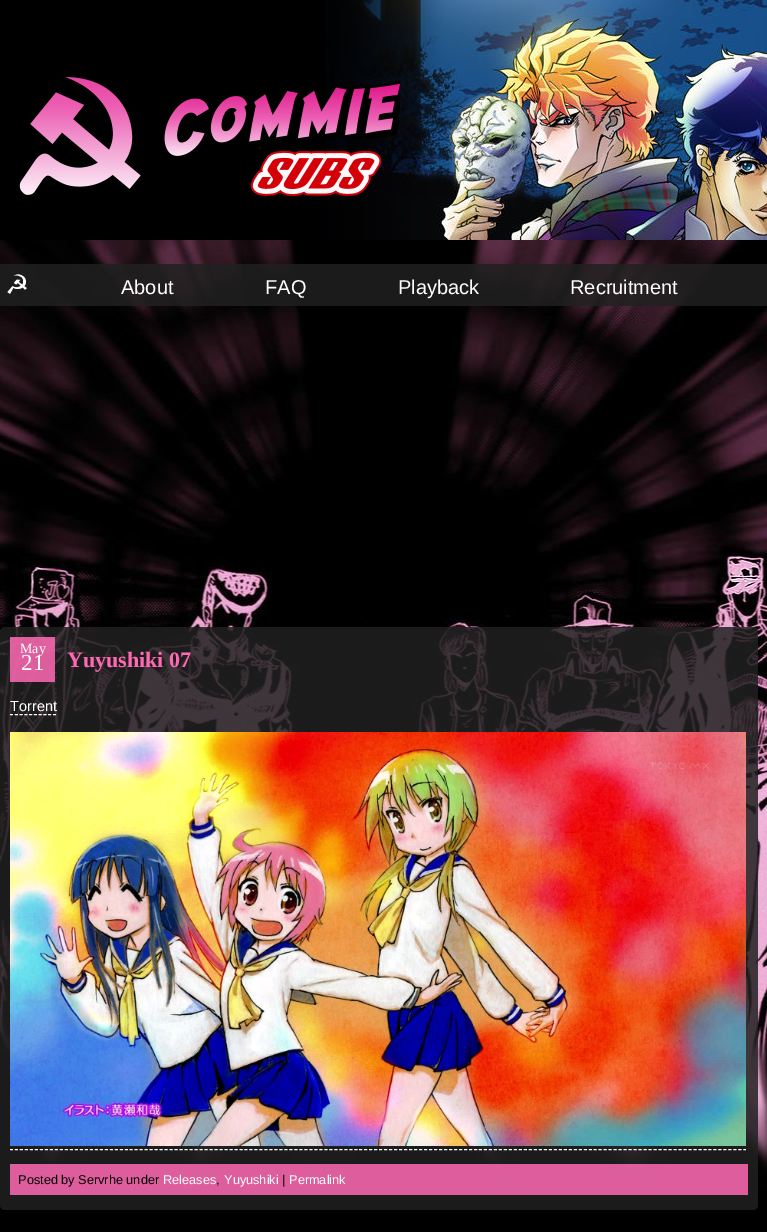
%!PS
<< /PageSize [767 1232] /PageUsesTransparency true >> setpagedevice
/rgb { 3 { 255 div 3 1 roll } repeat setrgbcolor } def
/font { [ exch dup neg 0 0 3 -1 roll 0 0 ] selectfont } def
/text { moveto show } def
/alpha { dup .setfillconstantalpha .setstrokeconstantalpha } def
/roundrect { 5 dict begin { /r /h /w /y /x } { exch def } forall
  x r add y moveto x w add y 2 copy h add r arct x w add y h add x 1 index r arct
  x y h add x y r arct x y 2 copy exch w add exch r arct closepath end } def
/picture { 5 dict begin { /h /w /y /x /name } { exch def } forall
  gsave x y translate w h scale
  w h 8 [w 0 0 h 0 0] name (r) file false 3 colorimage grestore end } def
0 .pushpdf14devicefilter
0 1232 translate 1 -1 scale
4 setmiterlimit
0 0 0 rgb
0 0 767 1232 rectfill
(img_01.rgb) 0 240 767 950 picture
(img_02.rgb) 0 0 767 240 picture
0.85 alpha
32 32 32 rgb
0 264 767 42 rectfill
0 627 758 583 5 roundrect fill
255 105 180 rgb
10 637 45 45 rectfill
1 alpha
255 255 255 rgb
[3 1.78] 0 setdash
10 714.5 moveto 46 0 rlineto stroke
(img_03.rgb) 10 732 736 414 picture
[3 1.99] 0 setdash
10 1149.5 moveto 736 0 rlineto stroke
0.85 alpha
255 105 180 rgb
10 1164 738 31 rectfill
/DejaVuSans-Regular 27 font
1 alpha
255 255 255 rgb
(☭) 5 294 text
/LiberationSans-Regular 20 font
(About) 121 294 text
(FAQ) 265 294 text
(Playback) 398 294 text
(Recruitment) 570 294 text
/LiberationSerif-Regular 14 font
(May) 20 653 text
/LiberationSerif-Regular 23 font
(21) 21 670 text
/LiberationSerif-Bold 22 font
255 105 180 rgb
(Yuyushiki 07) 67 667 text
/LiberationSans-Regular 14.5 font
255 255 255 rgb
(Torrent) 10 711 text
/LiberationSans-Regular 12.75 font
0 0 0 rgb
(Posted by Servrhe under) 18 1184 text
255 255 255 rgb
(Releases) 163 1184 text
0 0 0 rgb
(,) 216 1184 text
255 255 255 rgb
(Yuyushiki) 224 1184 text
0 0 0 rgb
(|) 282 1184 text
255 255 255 rgb
(Permalink) 289 1184 text
.poppdf14devicefilter showpage
